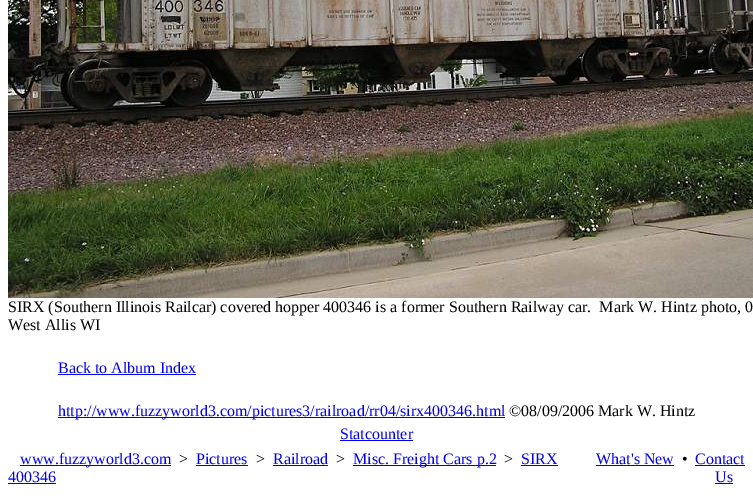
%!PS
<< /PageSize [753 496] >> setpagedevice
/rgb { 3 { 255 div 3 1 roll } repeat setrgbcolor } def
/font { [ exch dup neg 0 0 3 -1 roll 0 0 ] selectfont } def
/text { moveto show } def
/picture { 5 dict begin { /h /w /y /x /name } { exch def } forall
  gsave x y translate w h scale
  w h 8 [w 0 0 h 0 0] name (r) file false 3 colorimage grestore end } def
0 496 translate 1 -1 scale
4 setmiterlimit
255 255 255 rgb
0 0 753 496 rectfill
(img_01.rgb) 8 0 745 298 picture
0 0 238 rgb
58 374 138 1 rectfill
58 417 447 1 rectfill
340 440 73 1 rectfill
20 465 151 1 rectfill
196 465 52 1 rectfill
273 465 55 1 rectfill
353 465 143 1 rectfill
521 465 37 1 rectfill
8 483 48 1 rectfill
596 465 78 1 rectfill
695 465 50 1 rectfill
715 483 18 1 rectfill
/LiberationSerif-Regular 16 font
0 0 0 rgb
(SIRX \(Southern Illinois Railcar\) covered hopper 400346 is a former Southern Railway car.  Mark W. Hintz photo, 0) 8 312 text
(West Allis WI) 8 330 text
0 0 238 rgb
(Back to Album Index) 58 373 text
(http://www.fuzzyworld3.com/pictures3/railroad/rr04/sirx400346.html) 58 416 text
0 0 0 rgb
(©08/09/2006 Mark W. Hintz) 509 416 text
0 0 238 rgb
(Statcounter) 340 439 text
(www.fuzzyworld3.com) 20 464 text
0 0 0 rgb
(>) 179 464 text
0 0 238 rgb
(Pictures) 196 464 text
0 0 0 rgb
(>) 256 464 text
0 0 238 rgb
(Railroad) 273 464 text
0 0 0 rgb
(>) 336 464 text
0 0 238 rgb
(Misc. Freight Cars p.2) 353 464 text
0 0 0 rgb
(>) 504 464 text
0 0 238 rgb
(SIRX) 521 464 text
(400346) 8 482 text
(What's New) 596 464 text
0 0 0 rgb
(•) 682 464 text
0 0 238 rgb
(Contact) 695 464 text
(Us) 715 482 text
showpage
